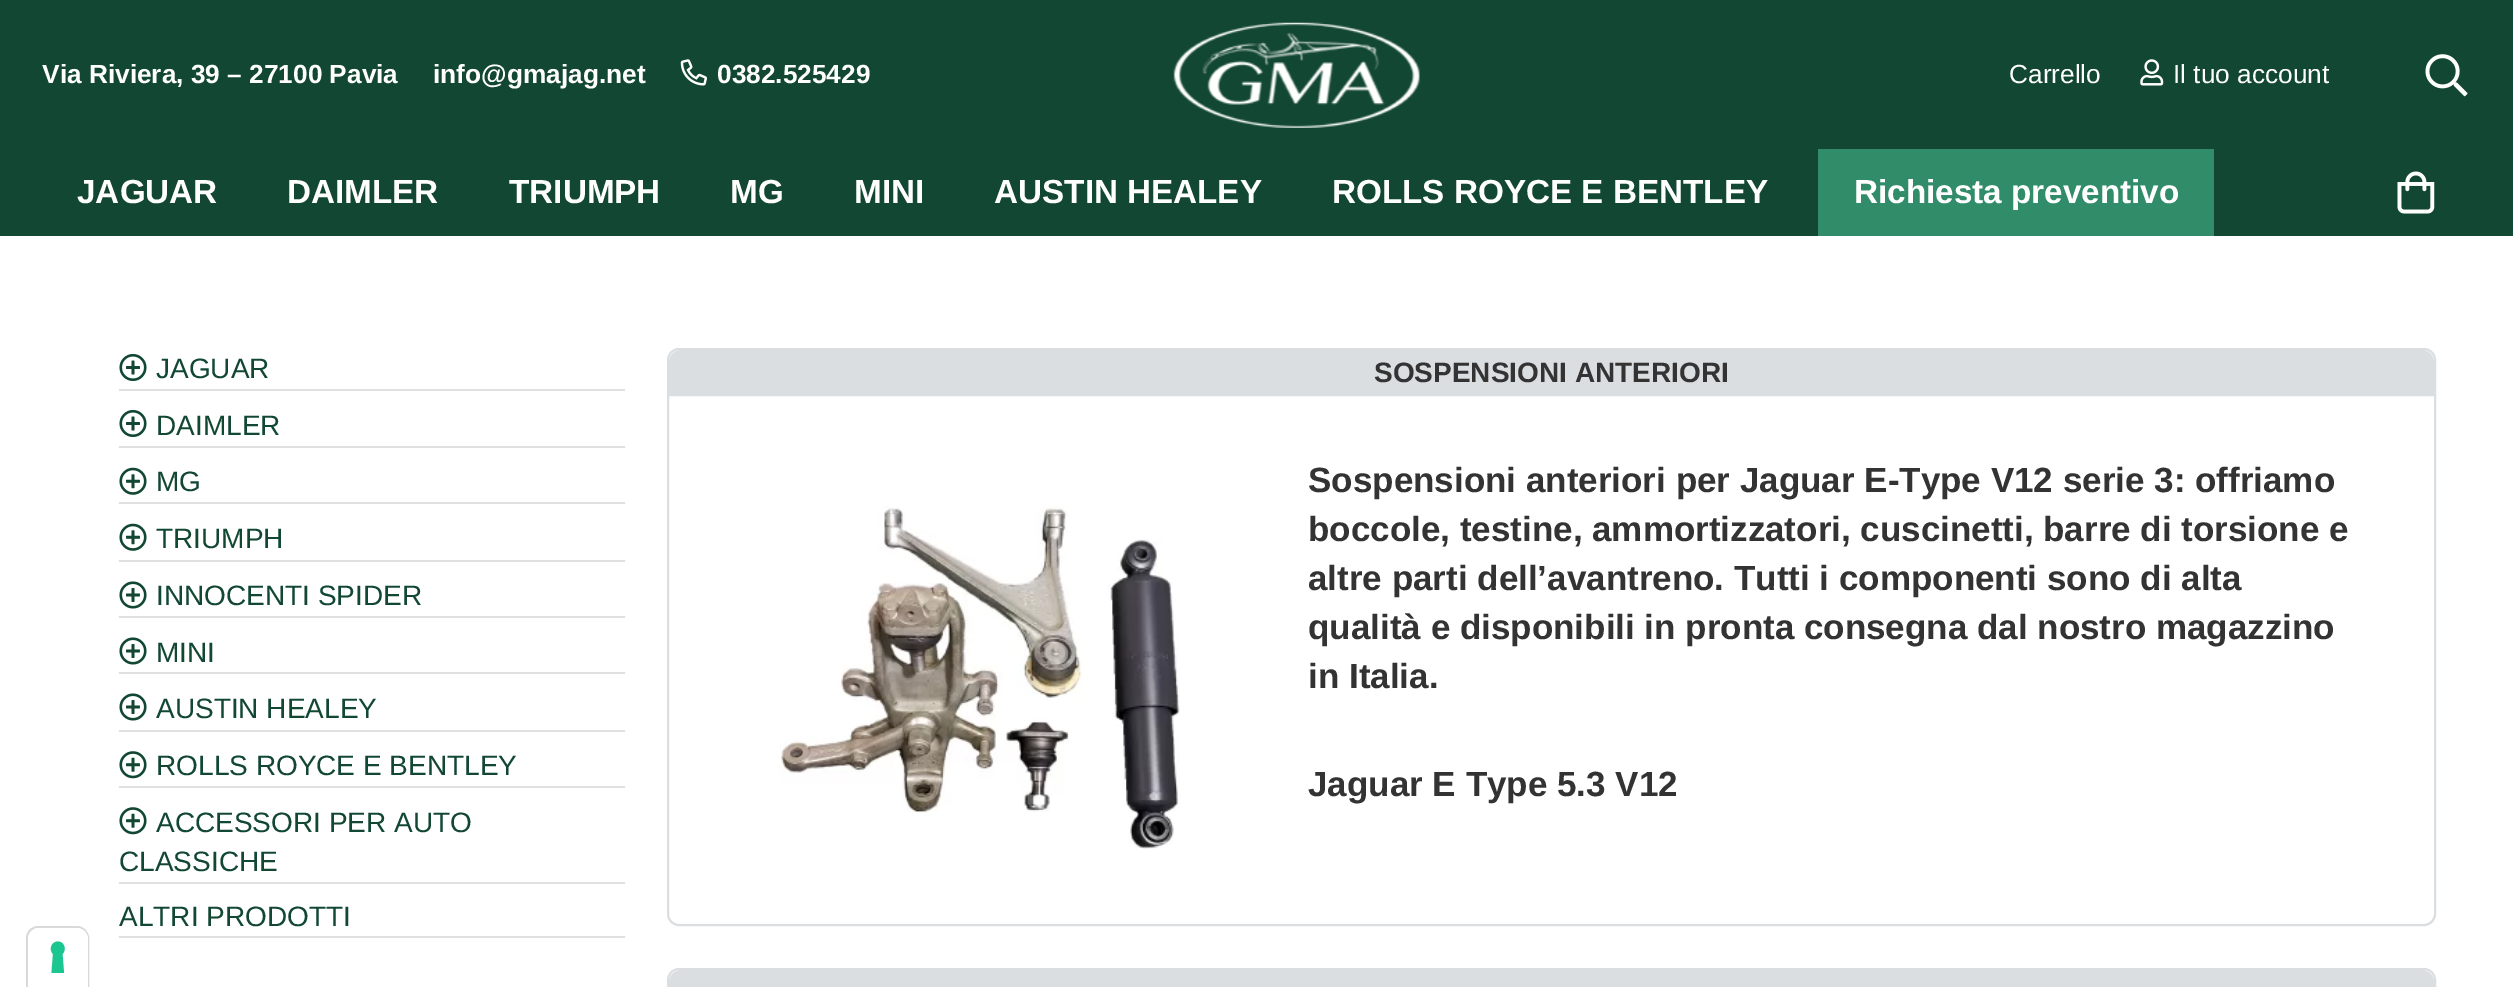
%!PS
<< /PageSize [2513 987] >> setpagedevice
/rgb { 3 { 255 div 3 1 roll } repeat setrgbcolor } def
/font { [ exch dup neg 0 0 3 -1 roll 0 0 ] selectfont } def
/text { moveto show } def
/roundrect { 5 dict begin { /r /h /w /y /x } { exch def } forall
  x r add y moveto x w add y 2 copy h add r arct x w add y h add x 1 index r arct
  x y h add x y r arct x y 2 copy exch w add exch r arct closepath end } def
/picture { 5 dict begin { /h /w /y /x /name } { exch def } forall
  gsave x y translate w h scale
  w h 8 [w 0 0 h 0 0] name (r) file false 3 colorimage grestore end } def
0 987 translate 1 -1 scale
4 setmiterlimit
255 255 255 rgb
0 0 2513 987 rectfill
18 71 51 rgb
0 0 2513 236 rectfill
(img_01.rgb) 680 59 27 27 picture
(img_02.rgb) 1173 22 247 106 picture
(img_03.rgb) 2140 59 24 27 picture
(img_04.rgb) 2425 54 43 43 picture
49 140 105 rgb
1818 149 396 87 rectfill
(img_05.rgb) 2397 171 38 43 picture
224 224 224 rgb
119 389 506 2 rectfill
(img_06.rgb) 119 354 28 27 picture
119 446 506 2 rectfill
(img_06.rgb) 119 410 28 27 picture
119 502 506 2 rectfill
(img_07.rgb) 119 467 28 28 picture
119 560 506 2 rectfill
(img_07.rgb) 119 523 28 28 picture
119 616 506 2 rectfill
(img_08.rgb) 119 581 28 28 picture
119 672 506 2 rectfill
(img_08.rgb) 119 637 28 28 picture
119 730 506 2 rectfill
(img_08.rgb) 119 693 28 28 picture
119 786 506 2 rectfill
(img_09.rgb) 119 751 28 28 picture
119 882 506 2 rectfill
(img_09.rgb) 119 807 28 28 picture
119 936 506 2 rectfill
219 222 225 rgb
2 setlinewidth
668 349 1767 576 11 roundrect stroke
681 351 moveto 1741 0 rlineto 6 0 11 5 11 11 rcurveto 0 33 rlineto -1763 0 rlineto 0 -33 rlineto 0 -6 5 -11 11 -11 rcurveto closepath gsave fill grestore
stroke
(img_10.rgb) 779 506 401 343 picture
668 969 1767 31 11 roundrect stroke
681 971 moveto 1741 0 rlineto 6 0 11 5 11 11 rcurveto 0 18 rlineto -1763 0 rlineto 0 -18 rlineto 0 -6 5 -11 11 -11 rcurveto closepath gsave fill grestore
stroke
217 217 217 rgb
38 927 moveto 39 0 rlineto 6 0 11 5 11 11 rcurveto 0 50 rlineto -61 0 rlineto 0 -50 rlineto 0 -6 5 -11 11 -11 rcurveto closepath stroke
255 255 255 rgb
39 928 moveto 38 0 rlineto 6 0 11 5 11 11 rcurveto 0 48 rlineto -60 0 rlineto 0 -48 rlineto 0 -6 5 -11 11 -11 rcurveto closepath fill
28 198 145 rgb
58 941.5 moveto 6 0 9 8 4.5 12.5 rcurveto 1.5 19 rlineto -12.5 0 rlineto 1.5 -19 rlineto -4.5 -4.5 -1.5 -12.5 5 -12.5 rcurveto closepath eofill
/LiberationSans-Bold 26.25 font
255 255 255 rgb
(Via Riviera, 39 – 27100 Pavia) 42 83 text
(info@gmajag.net) 433 83 text
(0382.525429) 717 83 text
/LiberationSans-Regular 26.25 font
(Carrello) 2009 83 text
(Il tuo account) 2173 83 text
/LiberationSans-Bold 33.25 font
(JAGUAR) 77 203 text
(DAIMLER) 287 203 text
(TRIUMPH) 509 203 text
(MG) 730 203 text
(MINI) 854 203 text
(AUSTIN HEALEY) 994 203 text
(ROLLS ROYCE E BENTLEY) 1332 203 text
(Richiesta preventivo) 1854 203 text
/LiberationSans-Regular 28 font
18 71 51 rgb
(JAGUAR) 156 378 text
(DAIMLER) 156 435 text
(MG) 156 491 text
(TRIUMPH) 156 548 text
(INNOCENTI SPIDER) 156 605 text
(MINI) 156 662 text
(AUSTIN HEALEY) 156 718 text
(ROLLS ROYCE E BENTLEY) 156 775 text
(ACCESSORI PER AUTO) 156 832 text
(CLASSICHE) 119 871 text
(ALTRI PRODOTTI) 119 926 text
/LiberationSans-Bold 28 font
51 51 51 rgb
(SOSPENSIONI ANTERIORI) 1374 382 text
/LiberationSans-Bold 35 font
(Sospensioni anteriori per Jaguar E-Type V12 serie 3: offriamo) 1308 492 text
(boccole, testine, ammortizzatori, cuscinetti, barre di torsione e) 1308 541 text
(altre parti dell’avantreno. Tutti i componenti sono di alta) 1308 590 text
(qualità e disponibili in pronta consegna dal nostro magazzino) 1308 639 text
(in Italia.) 1308 688 text
(Jaguar E Type 5.3 V12) 1308 796 text
showpage
